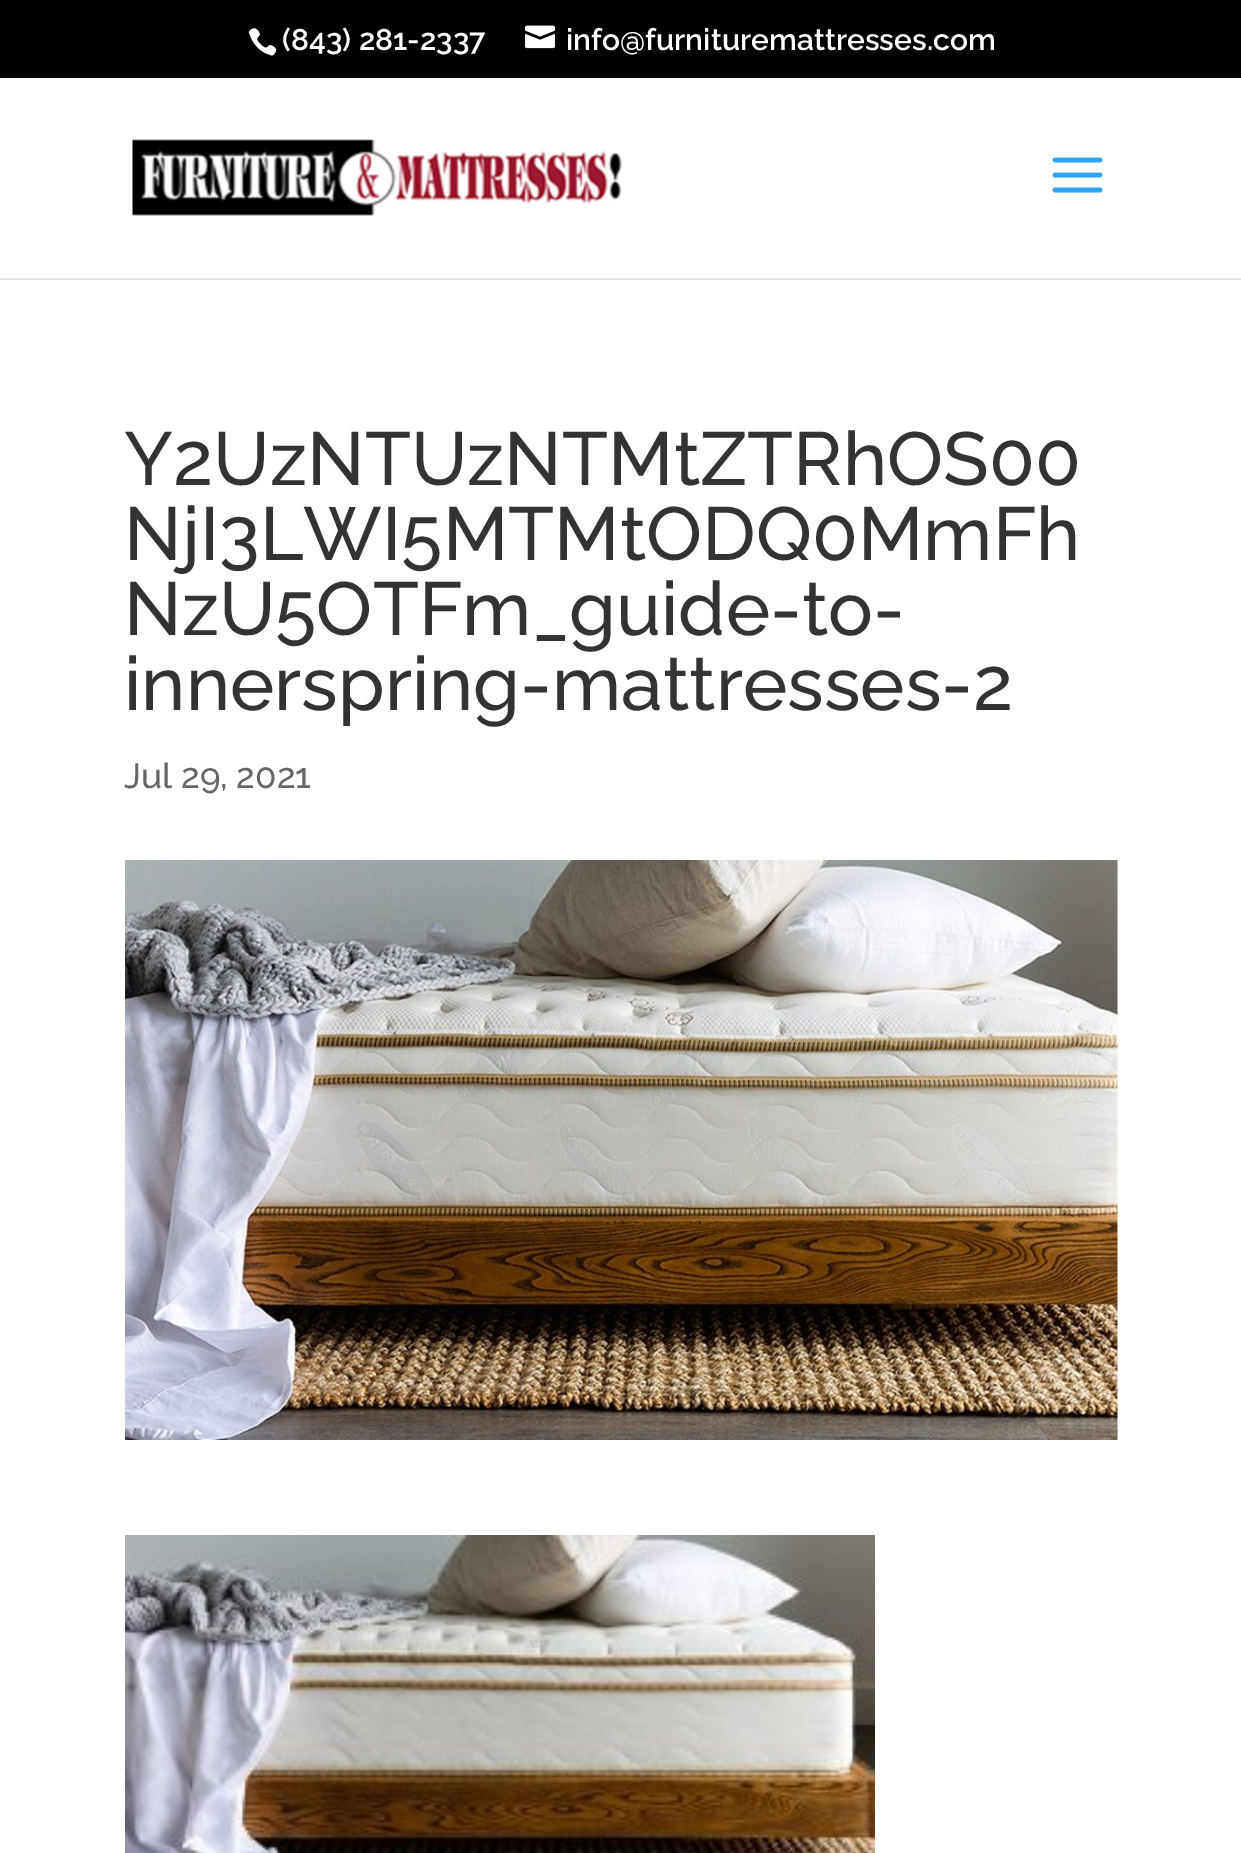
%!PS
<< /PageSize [1241 1853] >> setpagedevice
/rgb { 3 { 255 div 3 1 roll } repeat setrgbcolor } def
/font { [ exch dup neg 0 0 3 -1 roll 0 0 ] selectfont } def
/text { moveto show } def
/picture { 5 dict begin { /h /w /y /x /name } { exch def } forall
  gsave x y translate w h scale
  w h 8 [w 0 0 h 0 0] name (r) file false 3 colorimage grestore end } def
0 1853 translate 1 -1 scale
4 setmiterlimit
255 255 255 rgb
0 0 1241 1853 rectfill
0 0 0 rgb
0 0 1241 78 rectfill
(img_01.rgb) 248 28 29 28 picture
(img_02.rgb) 525 25 30 24 picture
230 230 230 rgb
0 278 moveto 0 2 rlineto 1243 0 rlineto 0 -200 rlineto -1 0 rlineto 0 198 rlineto closepath fill
(img_03.rgb) 132 139 490 77 picture
(img_04.rgb) 1052 157 51 36 picture
(img_05.rgb) 125 860 993 580 picture
(img_06.rgb) 125 1535 750 318 picture
/Raleway-SemiBold 30 font
255 255 255 rgb
(\(843\) 281-2337) 282 50 text
(info@furnituremattresses.com) 566 50 text
/Raleway-Medium 75 font
51 51 51 rgb
(Y2UzNTUzNTMtZTRhOS00) 124 485 text
(NjI3LWI5MTMtODQ0MmFh) 124 560 text
(NzU5OTFm_guide-to-) 124 635 text
(innerspring-mattresses-2) 124 710 text
/Raleway-Medium 35 font
102 102 102 rgb
(Jul 29, 2021) 124 788 text
showpage
